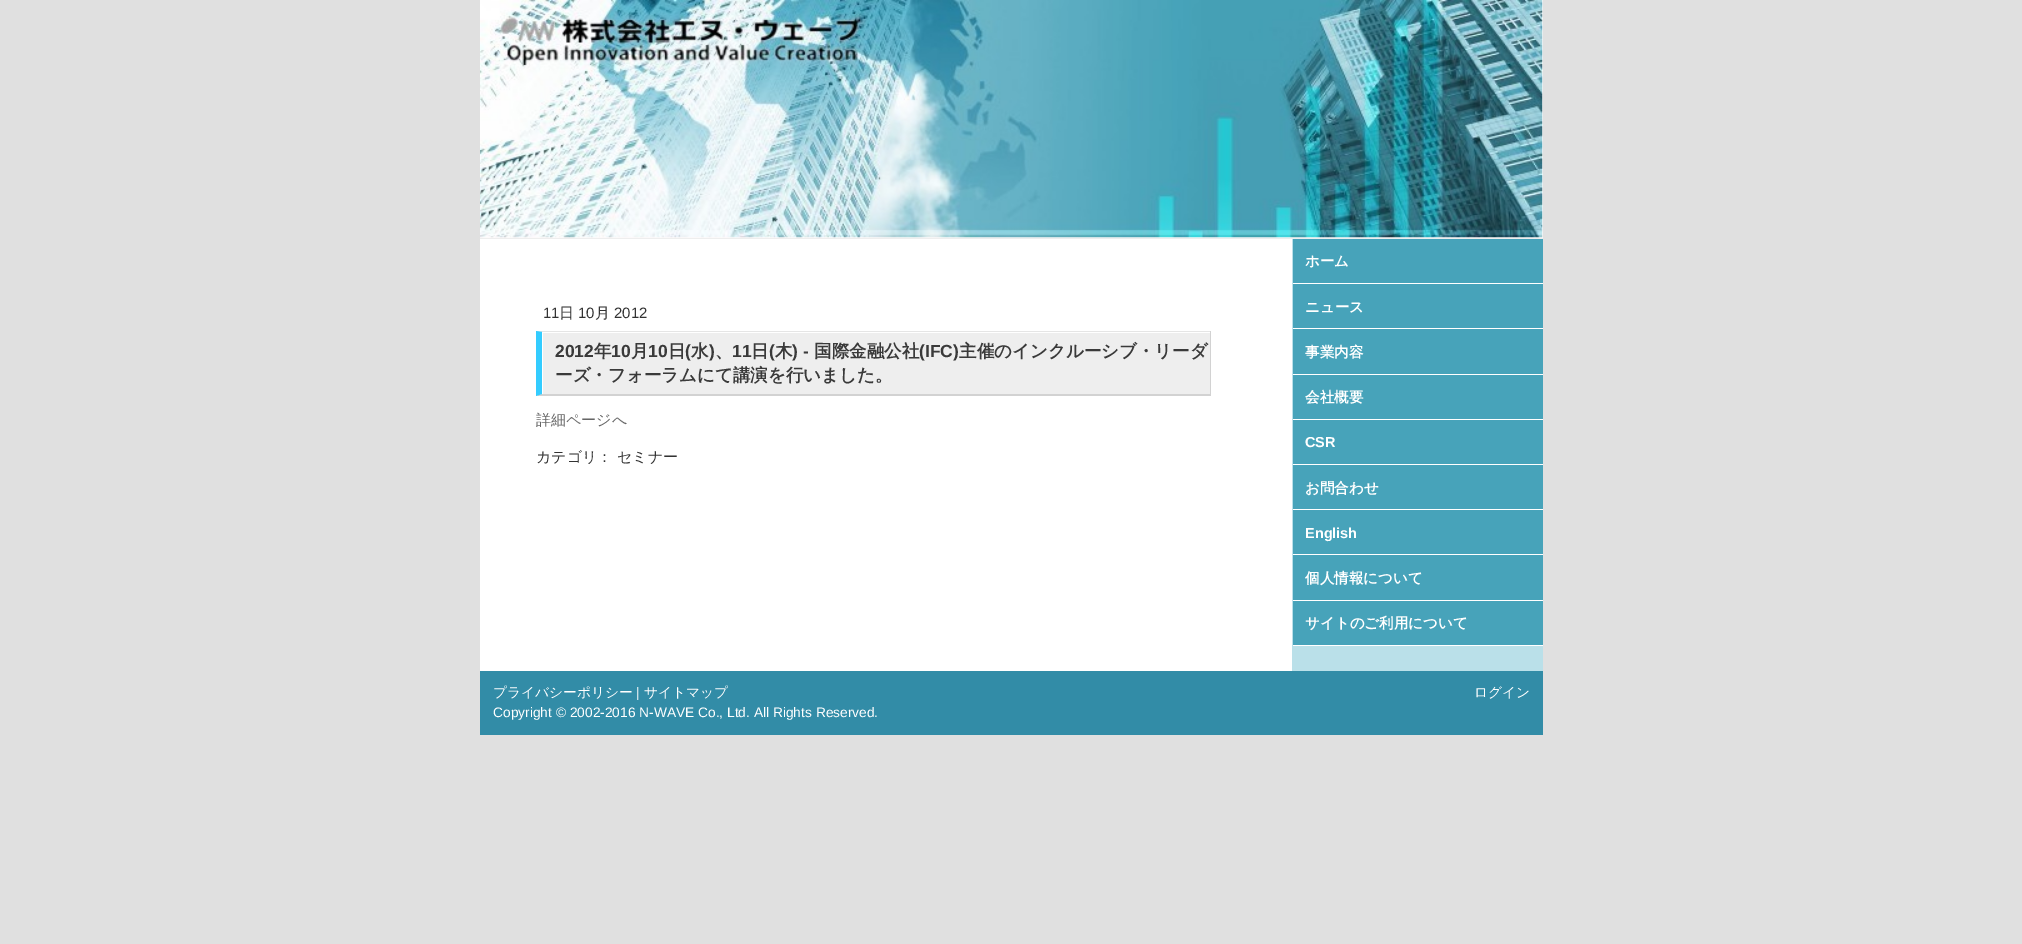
%!PS
<< /PageSize [2022 944] >> setpagedevice
/rgb { 3 { 255 div 3 1 roll } repeat setrgbcolor } def
/font { [ exch dup neg 0 0 3 -1 roll 0 0 ] selectfont } def
/text { moveto show } def
/picture { 5 dict begin { /h /w /y /x /name } { exch def } forall
  gsave x y translate w h scale
  w h 8 [w 0 0 h 0 0] name (r) file false 3 colorimage grestore end } def
0 944 translate 1 -1 scale
4 setmiterlimit
224 224 224 rgb
0 0 2022 944 rectfill
252 248 248 rgb
480 0 1063 238 rectfill
(img_01.rgb) 480 0 1063 238 picture
255 255 255 rgb
480 239 812 432 rectfill
186 224 233 rgb
1292 239 251 432 rectfill
238 238 238 rgb
480 238 1063 1 rectfill
543 333 667 61 rectfill
229 229 229 rgb
536 331 moveto 675 0 rlineto -1 1 rlineto -668 0 rlineto closepath fill
210 210 210 rgb
1210 331 1 65 rectfill
1211 396 moveto -675 0 rlineto 6 -2 rlineto 668 0 rlineto closepath fill
51 204 255 rgb
536 396 moveto 0 -65 rlineto 6 1 rlineto 0 62 rlineto closepath fill
71 163 186 rgb
1293 239 250 44 rectfill
255 255 255 rgb
1293 283 250 1 rectfill
71 163 186 rgb
1293 284 250 44 rectfill
255 255 255 rgb
1293 328 250 1 rectfill
71 163 186 rgb
1293 329 250 45 rectfill
255 255 255 rgb
1293 374 250 1 rectfill
71 163 186 rgb
1293 375 250 44 rectfill
255 255 255 rgb
1293 419 250 1 rectfill
71 163 186 rgb
1293 420 250 44 rectfill
255 255 255 rgb
1293 464 250 1 rectfill
71 163 186 rgb
1293 465 250 44 rectfill
255 255 255 rgb
1293 509 250 1 rectfill
71 163 186 rgb
1293 510 250 44 rectfill
255 255 255 rgb
1293 554 250 1 rectfill
71 163 186 rgb
1293 555 250 45 rectfill
255 255 255 rgb
1293 600 250 1 rectfill
71 163 186 rgb
1293 601 250 44 rectfill
255 255 255 rgb
1293 645 250 1 rectfill
50 140 167 rgb
480 671 1063 64 rectfill
/LiberationSans-Regular 15 font
51 51 51 rgb
(11) 543 318 text
/WenQuanYiZenHei-Medium 15 font
(日) 559 318 text
/LiberationSans-Regular 15 font
(10) 578 318 text
/WenQuanYiZenHei-Medium 15 font
(月) 595 318 text
/LiberationSans-Regular 15 font
(2012) 614 318 text
/LiberationSans-Bold 17.5 font
58 58 58 rgb
(2012) 555 357 text
/WenQuanYiZenHei-Bold 17.5 font
(年) 594 357 text
/LiberationSans-Bold 17.5 font
(10) 611 357 text
/WenQuanYiZenHei-Bold 17.5 font
(月) 631 357 text
/LiberationSans-Bold 17.5 font
(10) 648 357 text
/WenQuanYiZenHei-Bold 17.5 font
(日) 668 357 text
/LiberationSans-Bold 17.5 font
(\() 685 357 text
/WenQuanYiZenHei-Bold 17.5 font
(水) 691 357 text
/LiberationSans-Bold 17.5 font
(\)) 709 357 text
/WenQuanYiZenHei-Bold 17.5 font
(、) 715 357 text
/LiberationSans-Bold 17.5 font
(11) 732 357 text
/WenQuanYiZenHei-Bold 17.5 font
(日) 751 357 text
/LiberationSans-Bold 17.5 font
(\() 769 357 text
/WenQuanYiZenHei-Bold 17.5 font
(木) 775 357 text
/LiberationSans-Bold 17.5 font
(\) -) 792 357 text
/WenQuanYiZenHei-Bold 17.5 font
(国際金融公社) 814 357 text
/LiberationSans-Bold 17.5 font
(\(IFC\)) 919 357 text
/WenQuanYiZenHei-Bold 17.5 font
(主催のインクルーシブ・リーダ) 959 357 text
(ーズ・フォーラムにて講演を行いました。) 555 381 text
/WenQuanYiZenHei-Medium 15 font
102 102 102 rgb
(詳細ページへ) 536 425 text
51 51 51 rgb
(カテゴリ：) 536 462 text
(セミナー) 617 462 text
/WenQuanYiZenHei-Bold 14.5 font
255 255 255 rgb
(ホーム) 1305 266 text
(ニュース) 1305 312 text
(事業内容) 1305 357 text
(会社概要) 1305 402 text
/LiberationSans-Bold 14.5 font
(CSR) 1305 447 text
/WenQuanYiZenHei-Bold 14.5 font
(お問合わせ) 1305 493 text
/LiberationSans-Bold 14.5 font
(English) 1305 538 text
/WenQuanYiZenHei-Bold 14.5 font
(個人情報について) 1305 583 text
(サイトのご利用について) 1305 628 text
/WenQuanYiZenHei-Medium 13.75 font
(プライバシーポリシー) 493 697 text
/LiberationSans-Regular 13.75 font
(|) 636 697 text
/WenQuanYiZenHei-Medium 13.75 font
(サイトマップ) 644 697 text
/LiberationSans-Regular 13.75 font
(Copyright © 2002-2016 N-WAVE Co., Ltd. All Rights Reserved.) 493 717 text
/WenQuanYiZenHei-Medium 13.75 font
(ログイン) 1474 697 text
showpage
